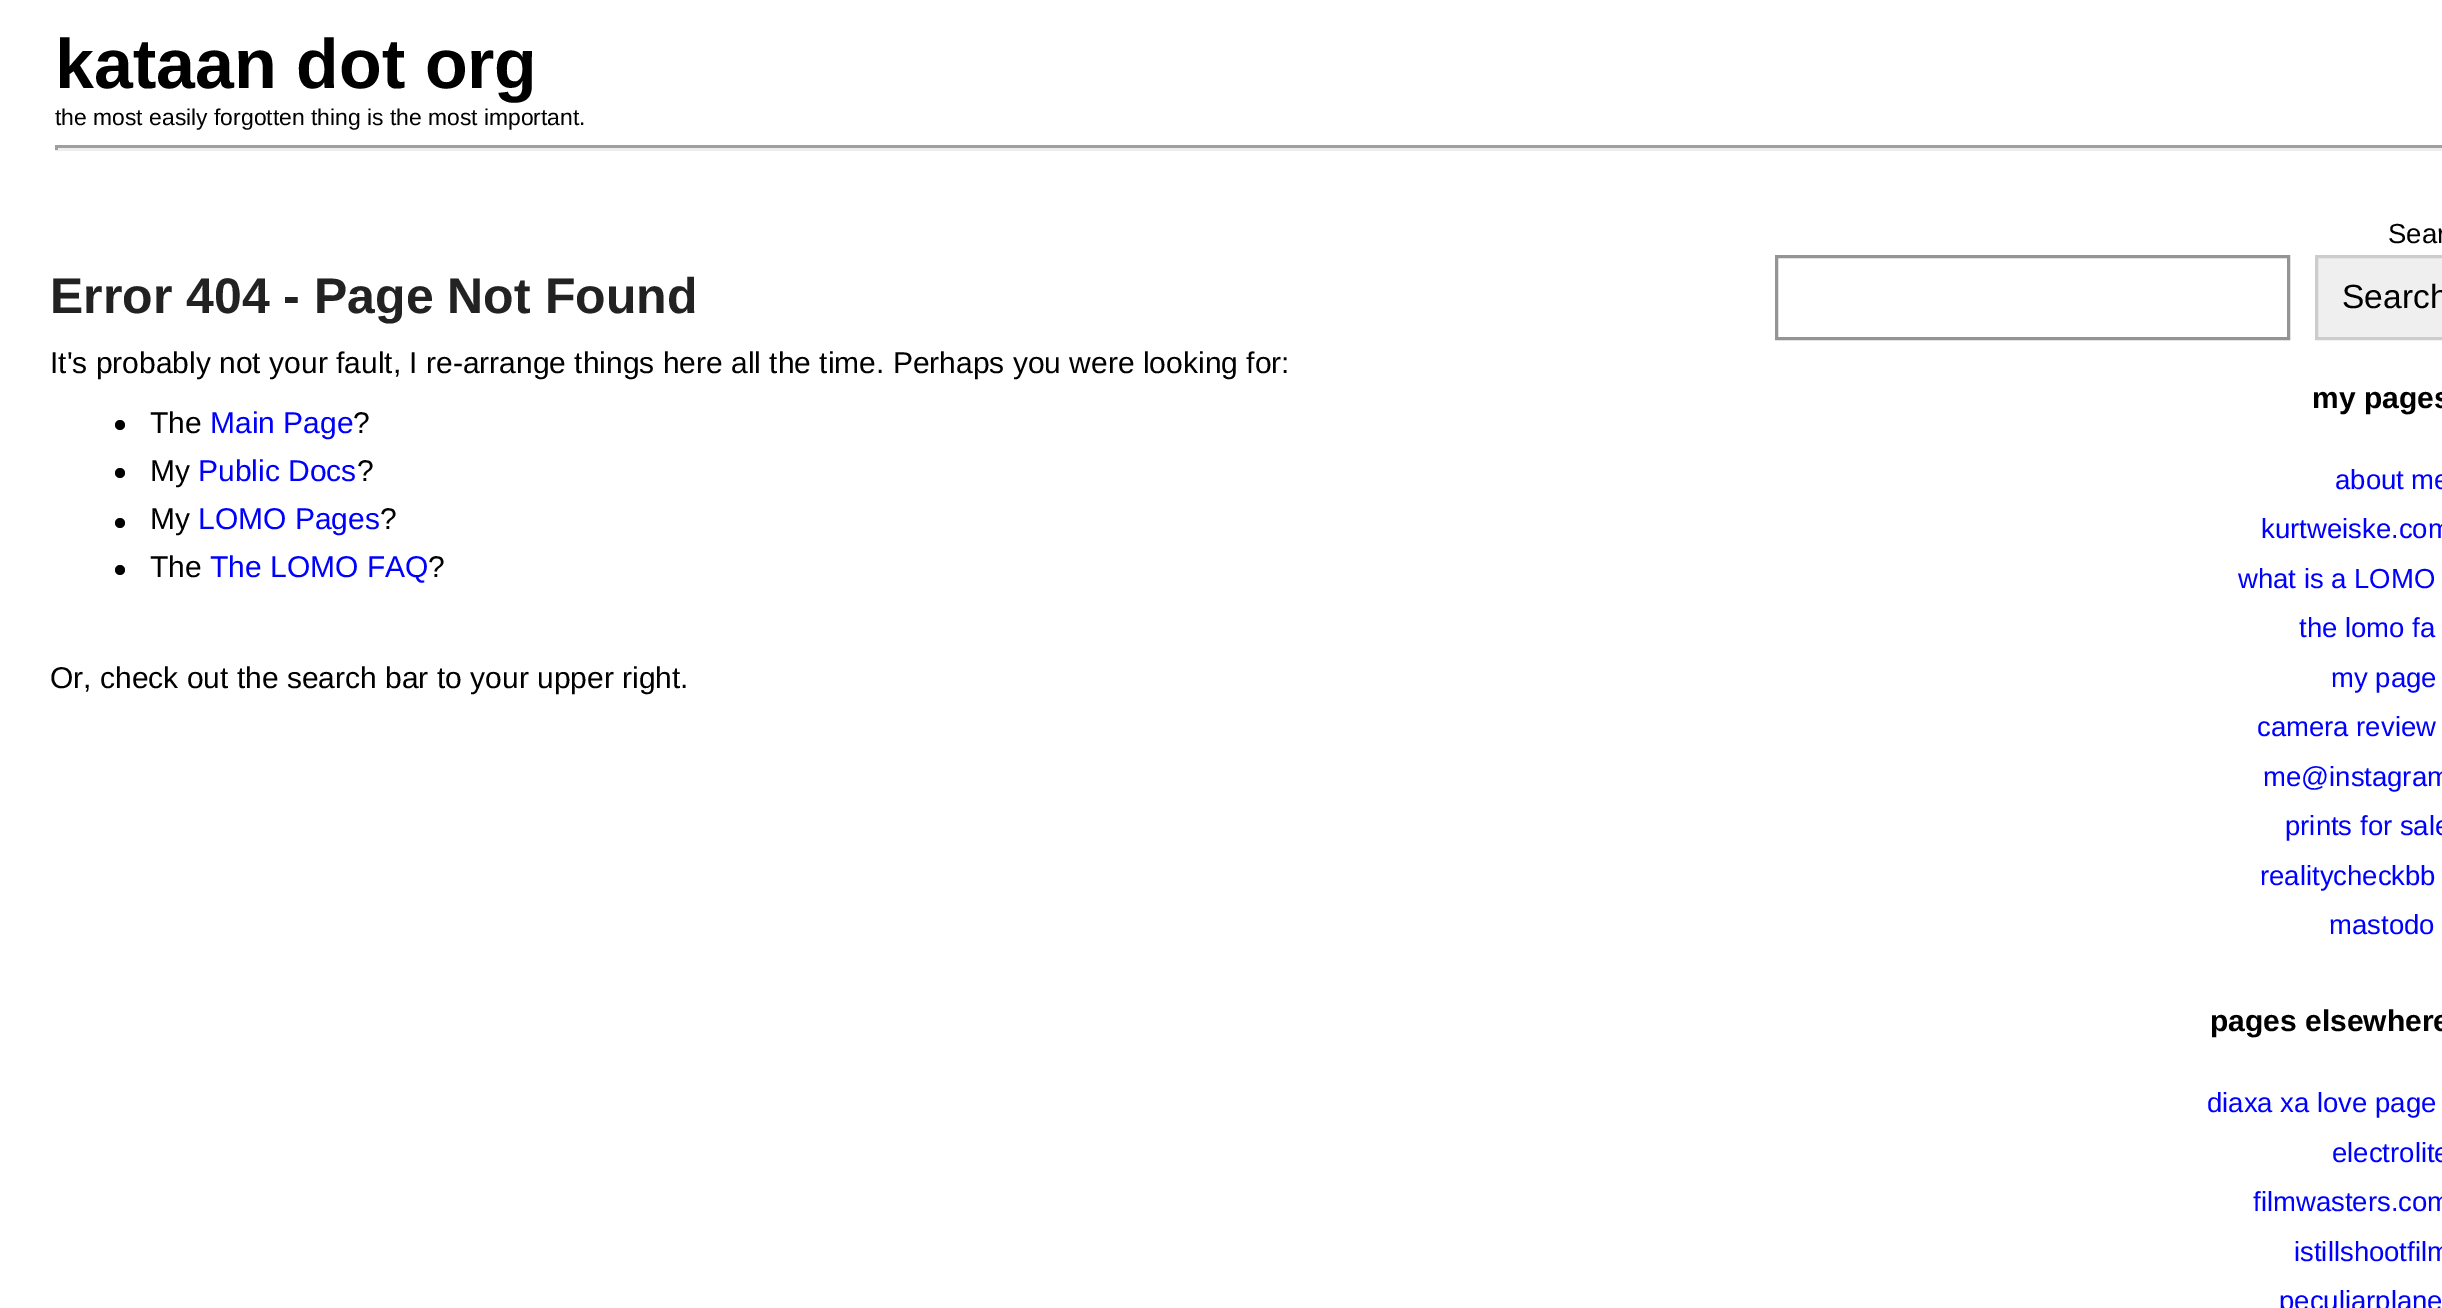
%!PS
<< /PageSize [2442 1308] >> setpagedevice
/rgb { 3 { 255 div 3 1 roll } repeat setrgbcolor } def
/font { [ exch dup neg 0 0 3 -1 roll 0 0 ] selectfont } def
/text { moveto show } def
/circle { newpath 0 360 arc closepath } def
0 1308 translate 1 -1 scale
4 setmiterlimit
255 255 255 rgb
0 0 2442 1308 rectfill
159 159 159 rgb
55 145 2387 3 rectfill
238 238 238 rgb
55 148 2387 3 rectfill
159 159 159 rgb
55 145 3 5 rectfill
0 0 0 rgb
120 425 5 circle fill
120 473 5 circle fill
120 523 5 circle fill
120 570 5 circle fill
148 148 148 rgb
3 setlinewidth
1776.5 256.5 512 82 rectstroke
239 239 239 rgb
2316.5 256.5 moveto 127 0 rlineto 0 82 rlineto -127 0 rlineto closepath gsave fill grestore
204 204 204 rgb
stroke
/LiberationSans-Bold 70 font
0 0 0 rgb
(kataan dot org) 55 88 text
/LiberationSans-Regular 22.9 font
(the most easily forgotten thing is the most important.) 55 125 text
/LiberationSans-Bold 50 font
34 34 34 rgb
(Error 404 - Page Not Found) 50 313 text
/LiberationSans-Regular 30 font
0 0 0 rgb
(It's probably not your fault, I re-arrange things here all the time. Perhaps you were looking for:) 50 373 text
(The) 150 433 text
0 0 255 rgb
(Main Page) 210 433 text
0 0 0 rgb
(?) 353 433 text
(My) 150 481 text
0 0 255 rgb
(Public Docs) 198 481 text
0 0 0 rgb
(?) 357 481 text
(My) 150 529 text
0 0 255 rgb
(LOMO Pages) 198 529 text
0 0 0 rgb
(?) 380 529 text
(The) 150 577 text
0 0 255 rgb
(The LOMO FAQ) 210 577 text
0 0 0 rgb
(?) 428 577 text
(Or, check out the search bar to your upper right.) 50 688 text
/LiberationSans-Regular 27.5 font
(Sear) 2388 243 text
/LiberationSans-Regular 33.5 font
(Search) 2342 308 text
/LiberationSans-Bold 30 font
(my pages) 2312 408 text
/LiberationSans-Regular 27.5 font
0 0 255 rgb
(about me) 2335 489 text
(kurtweiske.com) 2261 538 text
(what is a LOMO) 2238 588 text
(the lomo fa) 2299 637 text
(my page) 2331 687 text
(camera review) 2257 736 text
(me@instagram) 2263 786 text
(prints for sale) 2285 835 text
(realitycheckbb) 2260 885 text
(mastodo) 2329 934 text
/LiberationSans-Bold 30 font
0 0 0 rgb
(pages elsewhere) 2210 1031 text
/LiberationSans-Regular 27.5 font
0 0 255 rgb
(diaxa xa love page) 2207 1112 text
(electrolite) 2332 1162 text
(filmwasters.com) 2253 1211 text
(istillshootfilm) 2294 1261 text
(peculiarplane) 2279 1310 text
showpage
